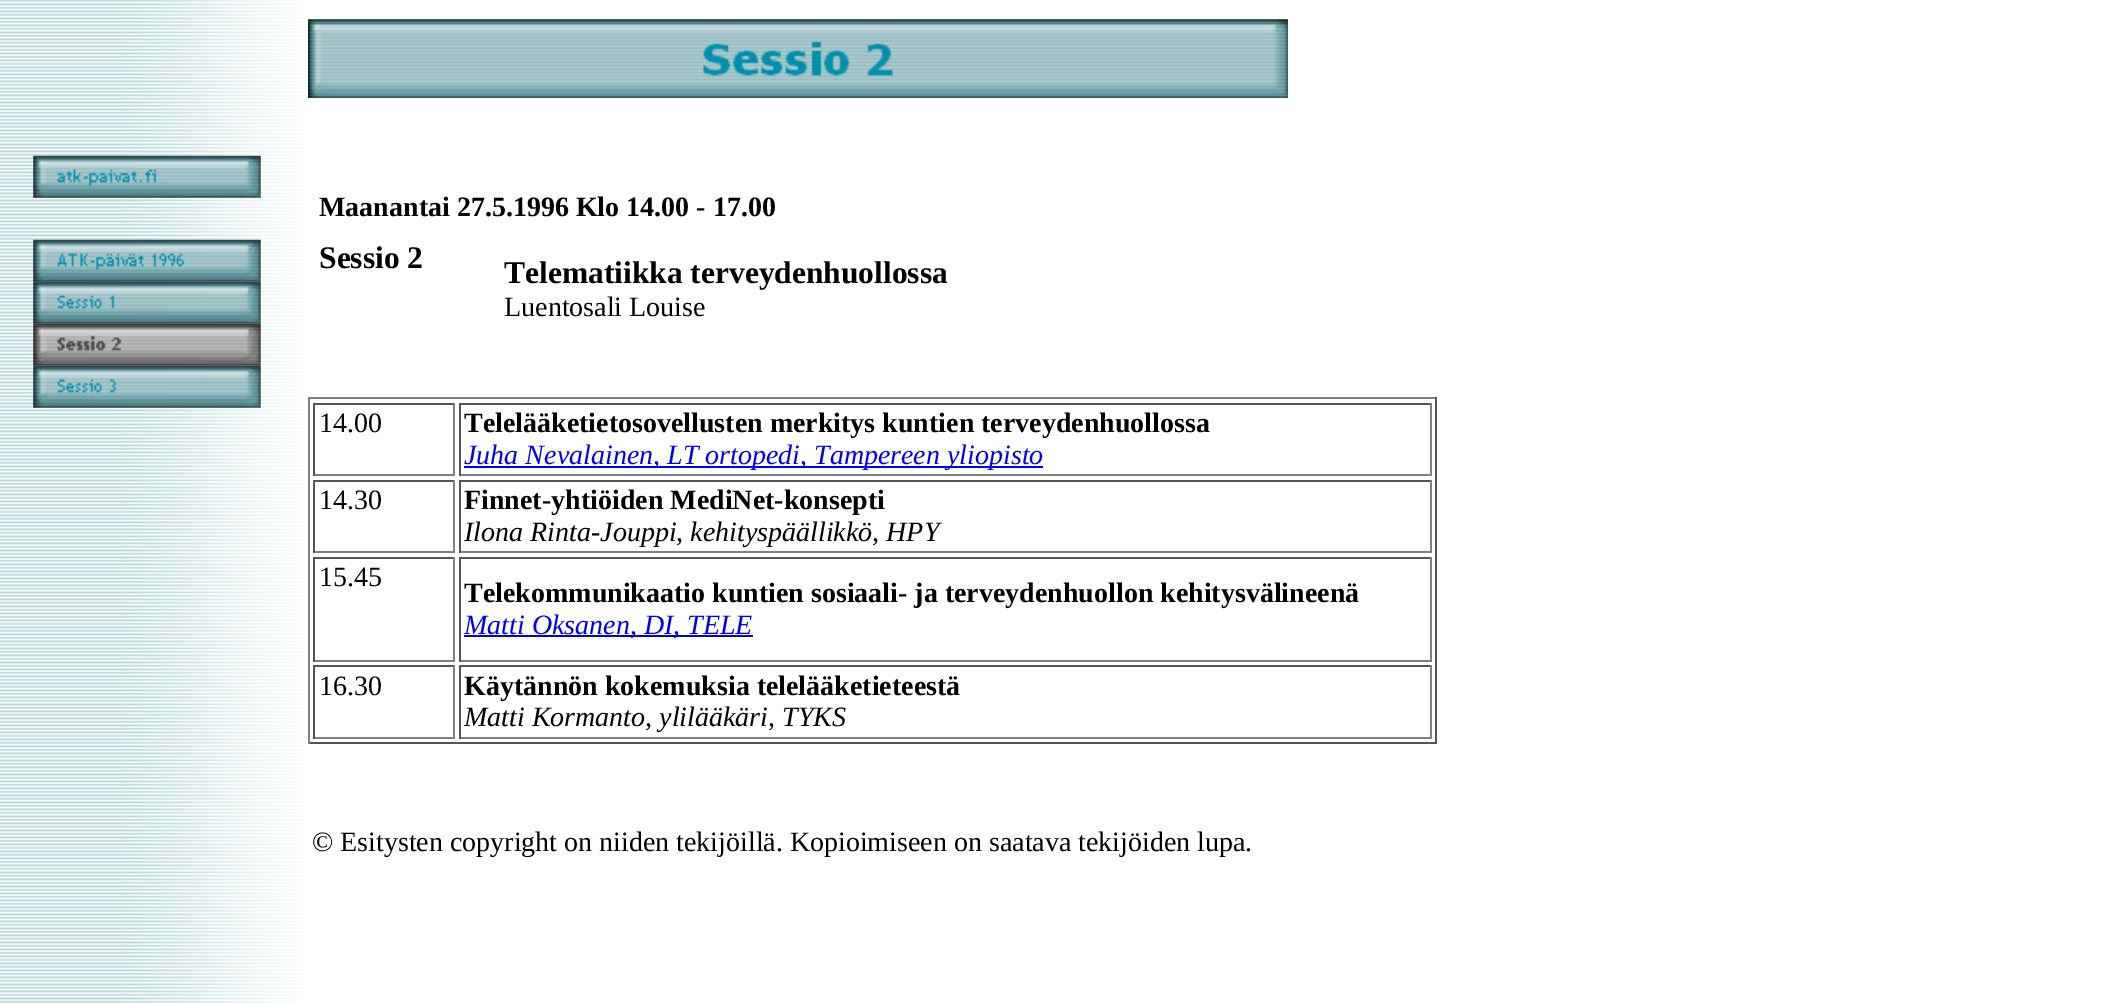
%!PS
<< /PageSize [2118 1003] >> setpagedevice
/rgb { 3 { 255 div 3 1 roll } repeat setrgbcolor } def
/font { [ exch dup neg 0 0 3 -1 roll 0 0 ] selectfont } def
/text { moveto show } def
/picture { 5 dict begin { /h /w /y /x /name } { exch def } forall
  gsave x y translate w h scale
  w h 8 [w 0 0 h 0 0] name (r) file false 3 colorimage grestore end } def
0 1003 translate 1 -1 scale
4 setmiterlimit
255 255 255 rgb
0 0 2118 1003 rectfill
(img_01.rgb) 0 0 304 1003 picture
(img_02.rgb) 33 155 228 43 picture
(img_03.rgb) 33 239 228 43 picture
(img_04.rgb) 33 281 228 43 picture
(img_05.rgb) 33 323 228 43 picture
(img_06.rgb) 33 365 228 43 picture
(img_07.rgb) 308 19 980 79 picture
128 128 128 rgb
308 397 1129 2 rectfill
85 85 85 rgb
1435 397 2 347 rectfill
308 742 1129 2 rectfill
128 128 128 rgb
308 397 2 347 rectfill
85 85 85 rgb
313 403 142 2 rectfill
128 128 128 rgb
453 403 2 73 rectfill
313 474 142 2 rectfill
85 85 85 rgb
313 403 2 73 rectfill
459 403 973 2 rectfill
128 128 128 rgb
1430 403 2 73 rectfill
459 474 973 2 rectfill
85 85 85 rgb
459 403 2 73 rectfill
0 0 238 rgb
464 466 579 2 rectfill
85 85 85 rgb
313 480 142 2 rectfill
128 128 128 rgb
453 480 2 73 rectfill
313 551 142 2 rectfill
85 85 85 rgb
313 480 2 73 rectfill
459 480 973 2 rectfill
128 128 128 rgb
1430 480 2 73 rectfill
459 551 973 2 rectfill
85 85 85 rgb
459 480 2 73 rectfill
313 557 142 2 rectfill
128 128 128 rgb
453 557 2 105 rectfill
313 660 142 2 rectfill
85 85 85 rgb
313 557 2 105 rectfill
459 557 973 2 rectfill
128 128 128 rgb
1430 557 2 105 rectfill
459 660 973 2 rectfill
85 85 85 rgb
459 557 2 105 rectfill
0 0 238 rgb
464 635 289 2 rectfill
85 85 85 rgb
313 665 142 2 rectfill
128 128 128 rgb
453 665 2 74 rectfill
313 737 142 2 rectfill
85 85 85 rgb
313 665 2 74 rectfill
459 665 973 2 rectfill
128 128 128 rgb
1430 665 2 74 rectfill
459 737 973 2 rectfill
85 85 85 rgb
459 665 2 74 rectfill
/LiberationSerif-Bold 28 font
0 0 0 rgb
(Maanantai 27.5.1996 Klo 14.00 - 17.00) 319 216 text
/LiberationSerif-Bold 31.5 font
(Sessio 2) 319 268 text
(Telematiikka terveydenhuollossa) 504 283 text
/LiberationSerif-Regular 28 font
(Luentosali Louise) 504 316 text
(14.00) 319 432 text
/LiberationSerif-Bold 28 font
(Telelääketietosovellusten merkitys kuntien terveydenhuollossa) 464 432 text
/LiberationSerif-Italic 28 font
0 0 238 rgb
(Juha Nevalainen, LT ortopedi, Tampereen yliopisto) 464 464 text
/LiberationSerif-Regular 28 font
0 0 0 rgb
(14.30) 319 509 text
/LiberationSerif-Bold 28 font
(Finnet-yhtiöiden MediNet-konsepti) 464 509 text
/LiberationSerif-Italic 28 font
(Ilona Rinta-Jouppi, kehityspäällikkö, HPY) 464 541 text
/LiberationSerif-Regular 28 font
(15.45) 319 586 text
/LiberationSerif-Bold 28 font
(Telekommunikaatio kuntien sosiaali- ja terveydenhuollon kehitysvälineenä) 464 602 text
/LiberationSerif-Italic 28 font
0 0 238 rgb
(Matti Oksanen, DI, TELE) 464 634 text
/LiberationSerif-Regular 28 font
0 0 0 rgb
(16.30) 319 695 text
/LiberationSerif-Bold 28 font
(Käytännön kokemuksia telelääketieteestä) 464 695 text
/LiberationSerif-Italic 28 font
(Matti Kormanto, ylilääkäri, TYKS) 464 726 text
/LiberationSerif-Regular 28 font
(© Esitysten copyright on niiden tekijöillä. Kopioimiseen on saatava tekijöiden lupa.) 312 851 text
showpage
